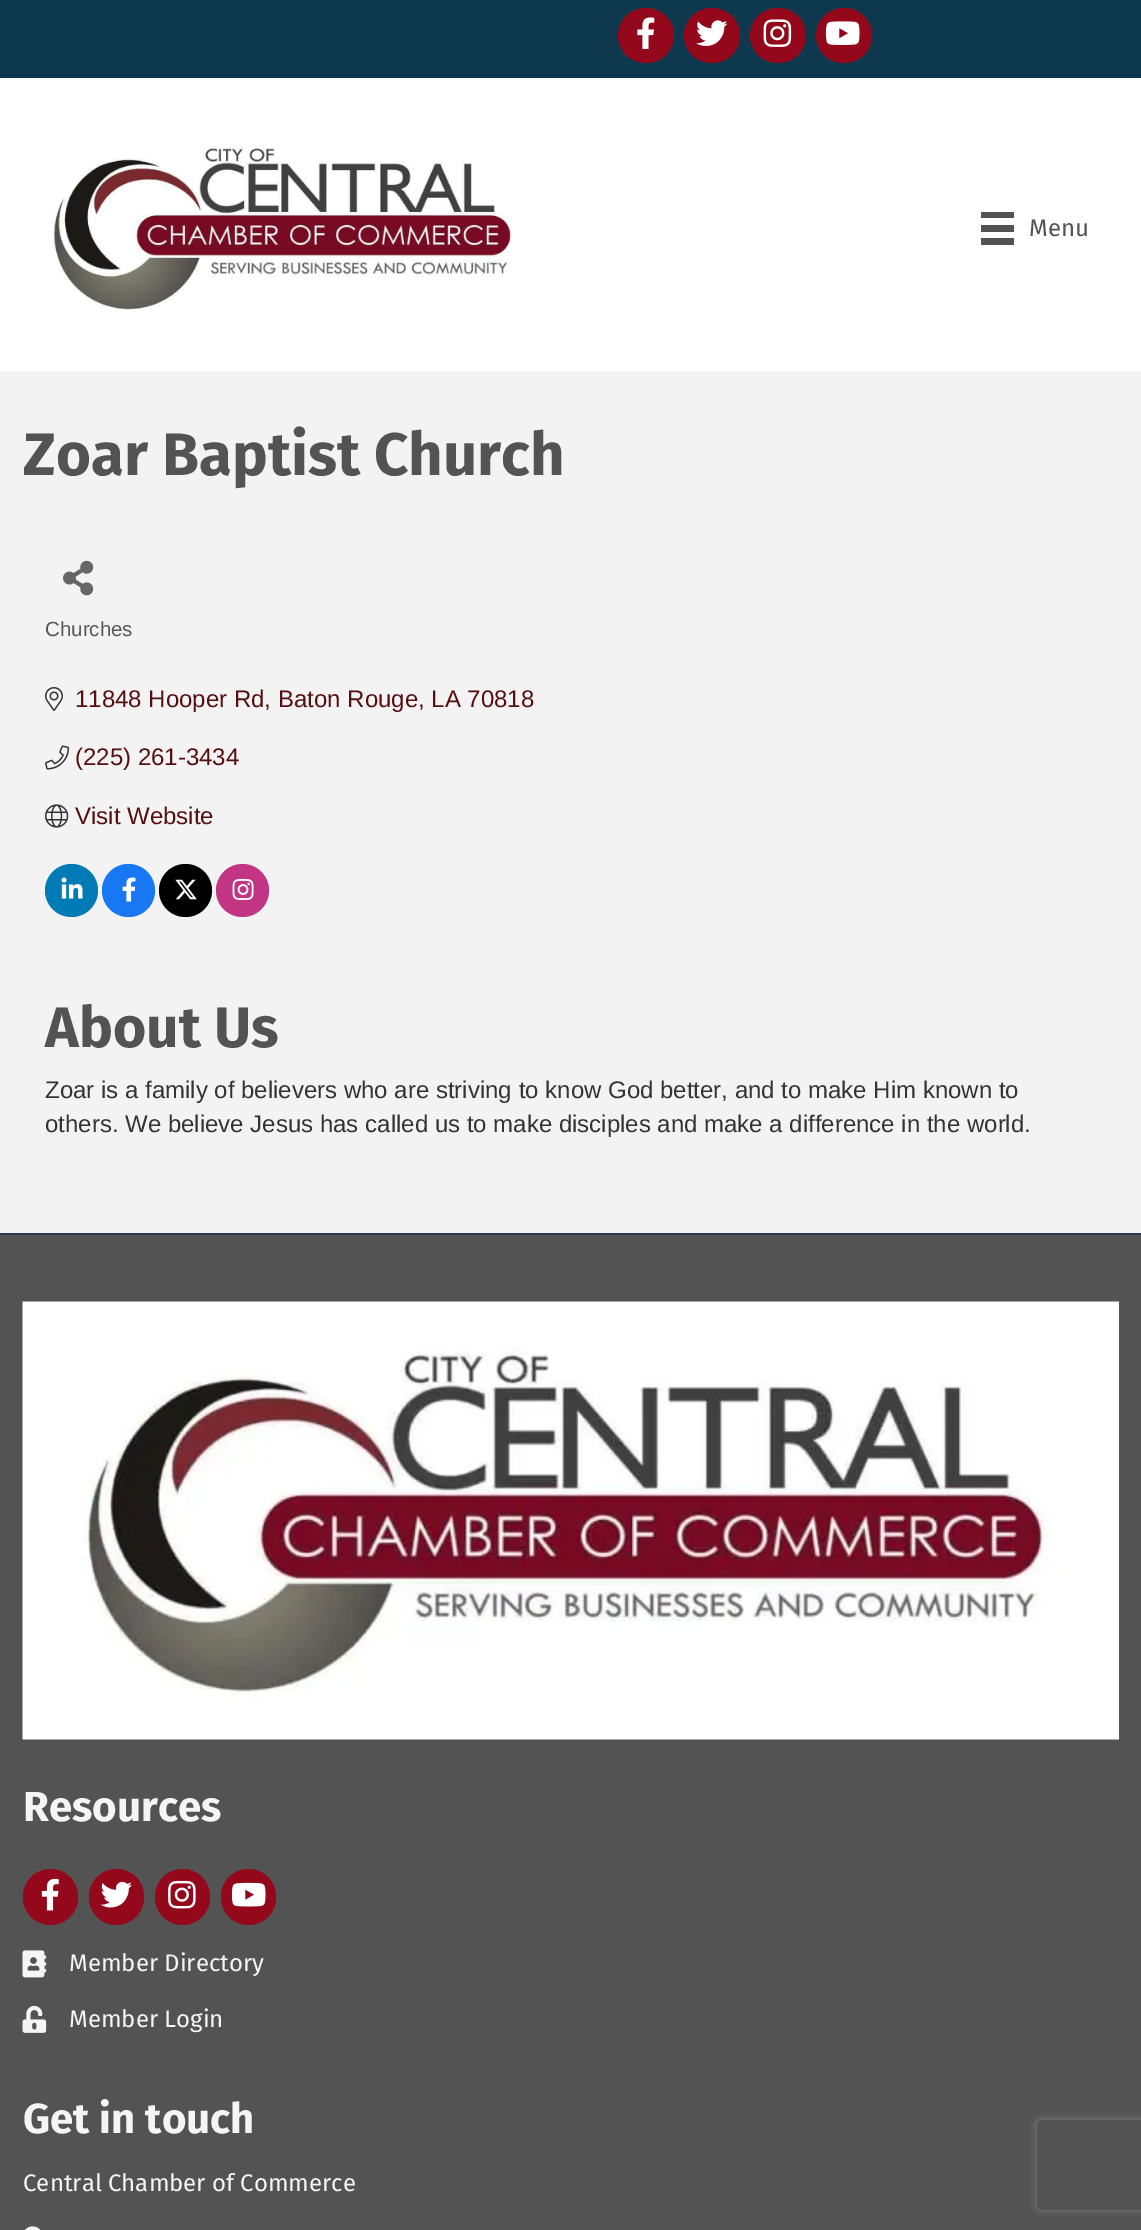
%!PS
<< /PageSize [1141 2230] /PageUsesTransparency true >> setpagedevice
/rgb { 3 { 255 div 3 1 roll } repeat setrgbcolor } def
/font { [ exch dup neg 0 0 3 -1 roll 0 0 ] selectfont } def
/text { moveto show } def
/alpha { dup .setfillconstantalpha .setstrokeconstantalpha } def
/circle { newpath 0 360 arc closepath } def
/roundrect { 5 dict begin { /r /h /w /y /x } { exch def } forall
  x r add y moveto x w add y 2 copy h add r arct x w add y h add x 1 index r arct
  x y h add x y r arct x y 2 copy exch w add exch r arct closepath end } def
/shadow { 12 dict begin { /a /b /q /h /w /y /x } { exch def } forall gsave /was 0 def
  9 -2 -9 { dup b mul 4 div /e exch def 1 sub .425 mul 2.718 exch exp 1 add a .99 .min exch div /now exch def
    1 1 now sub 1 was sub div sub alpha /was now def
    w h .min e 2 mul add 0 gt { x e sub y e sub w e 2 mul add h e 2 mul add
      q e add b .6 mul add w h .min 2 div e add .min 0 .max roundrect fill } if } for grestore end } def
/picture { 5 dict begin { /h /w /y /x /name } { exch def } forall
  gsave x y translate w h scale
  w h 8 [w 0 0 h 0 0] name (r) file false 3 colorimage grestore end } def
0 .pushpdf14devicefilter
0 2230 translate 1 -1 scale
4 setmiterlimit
243 243 243 rgb
0 0 1141 2230 rectfill
14 56 77 rgb
0 0 1141 78 rectfill
147 8 27 rgb
618 8 56 55 27.5 roundrect fill
(img_01.rgb) 637 17 18 32 picture
684 8 56 55 27.5 roundrect fill
(img_02.rgb) 696 20 32 26 picture
750 8 56 55 27.5 roundrect fill
(img_03.rgb) 763 19 29 28 picture
816 8 56 55 27.5 roundrect fill
(img_04.rgb) 825 21 35 24 picture
255 255 255 rgb
0 78 1141 293 rectfill
(img_05.rgb) 52 147 461 163 picture
83 83 83 rgb
981 212 33 6 rectfill
981 225 33 7 rectfill
981 238 33 7 rectfill
(img_06.rgb) 63 560 31 36 picture
(img_07.rgb) 45 687 18 24 picture
(img_08.rgb) 45 745 25 25 picture
(img_09.rgb) 45 804 24 24 picture
0 123 181 rgb
71.5 890.5 26.5 circle fill
(img_10.rgb) 61 877 22 22 picture
24 119 242 rgb
128.5 890.5 26.5 circle fill
(img_11.rgb) 122 877 14 25 picture
0 0 0 rgb
185.5 890.5 26.5 circle fill
(img_12.rgb) 175 879 22 21 picture
193 53 132 rgb
242.5 890.5 26.5 circle fill
(img_13.rgb) 232 879 22 21 picture
83 83 83 rgb
0 1235 1141 995 rectfill
44 58 86 rgb
0 1233 1141 2 rectfill
(img_14.rgb) 22 1301 1097 439 picture
147 8 27 rgb
23 1869 55 56 27.5 roundrect fill
(img_15.rgb) 41 1878 18 33 picture
89 1869 55 56 27.5 roundrect fill
(img_16.rgb) 100 1881 32 27 picture
155 1869 55 56 27.5 roundrect fill
(img_17.rgb) 168 1880 28 29 picture
221 1869 55 56 27.5 roundrect fill
(img_18.rgb) 231 1882 35 25 picture
(img_19.rgb) 22 1950 25 28 picture
(img_20.rgb) 22 2005 25 28 picture
(img_21.rgb) 25 2226 16 4 picture
gsave
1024 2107 moveto 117 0 rlineto 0 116 rlineto -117 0 rlineto closepath 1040 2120 moveto 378 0 rlineto 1.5 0 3 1.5 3 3 rcurveto 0 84 rlineto 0 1.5 -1.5 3 -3 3 rcurveto -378 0 rlineto -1.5 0 -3 -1.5 -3 -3 rcurveto 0 -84 rlineto 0 -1.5 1.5 -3 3 -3 rcurveto closepath eoclip newpath
128 128 128 rgb
1037 2120 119 90 3 4 1 shadow
grestore
/FiraSans-Regular 24 font
83 83 83 rgb
(Menu) 1029 236 text
/FiraSans-Bold 60 font
(Zoar Baptist Church) 23 475 text
/LiberationSans-Regular 20.5 font
89 89 89 rgb
(Churches) 45 636 text
/LiberationSans-Regular 24 font
86 15 17 rgb
(11848 Hooper Rd, Baton Rouge, LA 70818) 75 707 text
(\(225\) 261-3434) 75 765 text
(Visit Website) 75 824 text
/FiraSans-Bold 57 font
83 83 83 rgb
(About Us) 45 1047 text
/LiberationSans-Regular 24 font
51 51 51 rgb
(Zoar is a family of believers who are striving to know God better, and to make Him known to) 45 1098 text
(others. We believe Jesus has called us to make disciples and make a difference in the world.) 45 1132 text
/FiraSans-Bold 42 font
245 245 245 rgb
(Resources) 23 1821 text
/FiraSans-Regular 24 font
(Member Directory) 69 1971 text
(Member Login) 69 2027 text
/FiraSans-Bold 42 font
(Get in touch) 23 2133 text
/FiraSans-Regular 24 font
(Central Chamber of Commerce) 23 2191 text
.poppdf14devicefilter showpage
